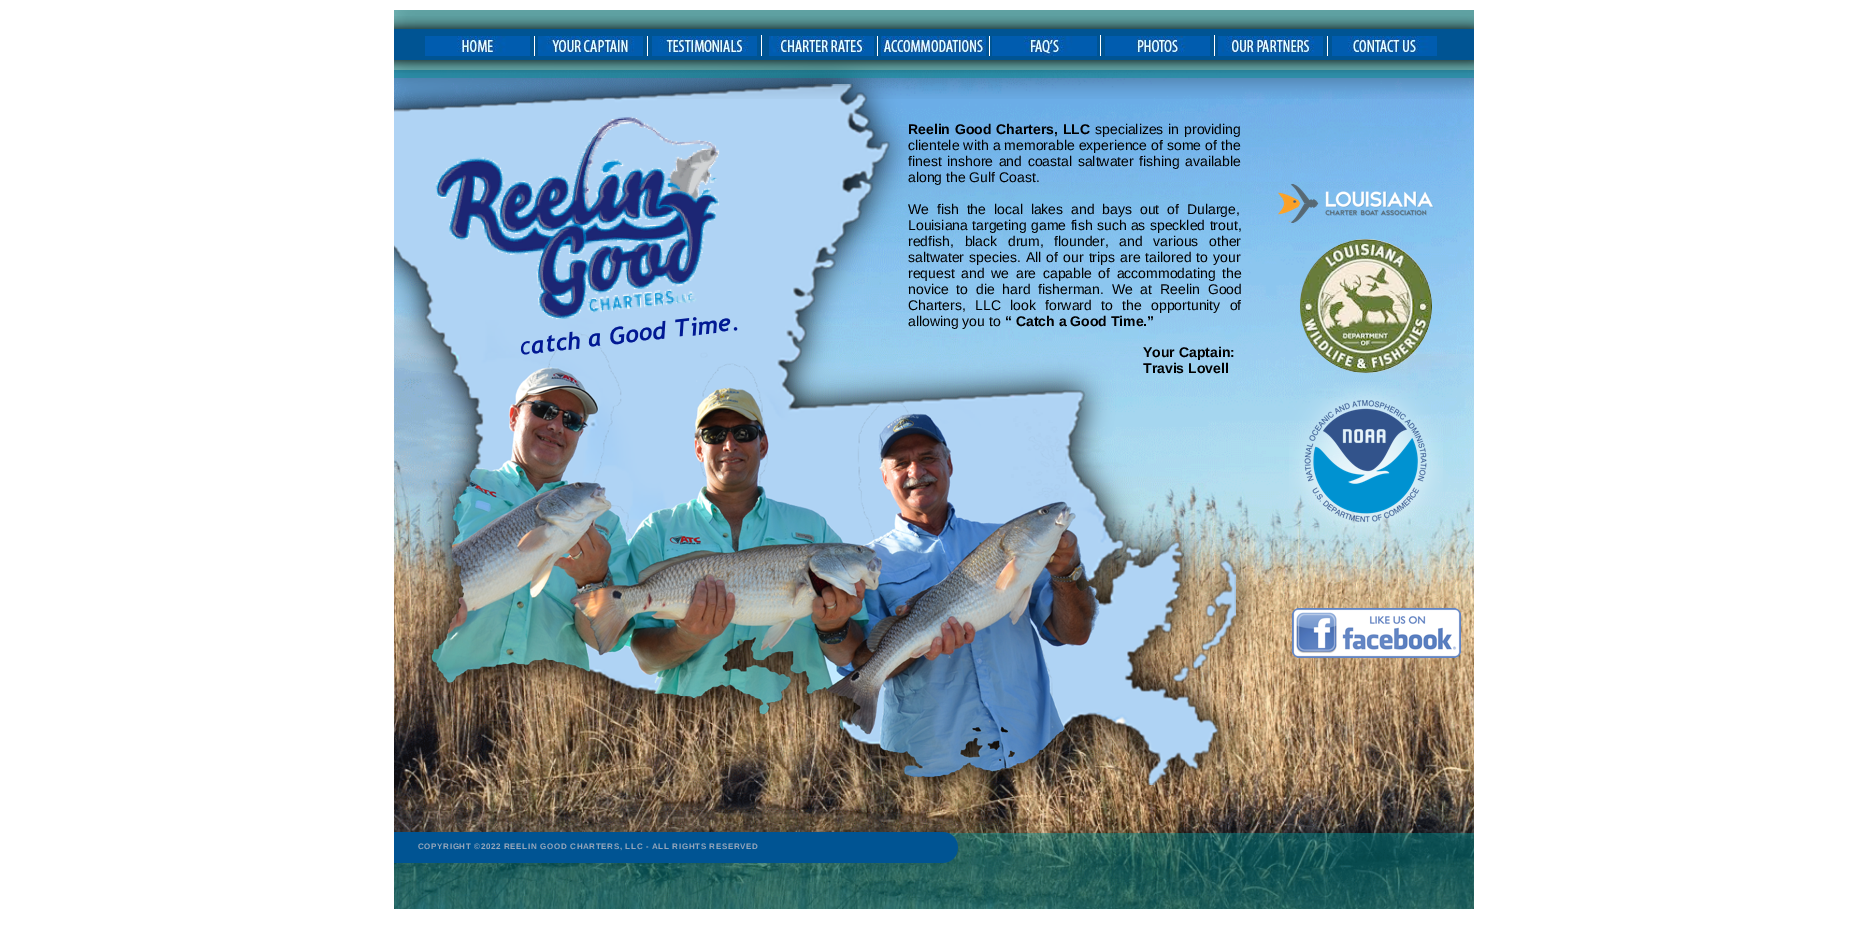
%!PS
<< /PageSize [1868 947] >> setpagedevice
/rgb { 3 { 255 div 3 1 roll } repeat setrgbcolor } def
/font { [ exch dup neg 0 0 3 -1 roll 0 0 ] selectfont } def
/text { moveto show } def
/picture { 5 dict begin { /h /w /y /x /name } { exch def } forall
  gsave x y translate w h scale
  w h 8 [w 0 0 h 0 0] name (r) file false 3 colorimage grestore end } def
0 947 translate 1 -1 scale
4 setmiterlimit
255 255 255 rgb
0 0 1868 947 rectfill
(img_13.rgb) 394 70 1080 839 picture
(img_12.rgb) 394 60 870 745 picture
(img_01.rgb) 394 10 1080 89 picture
(img_02.rgb) 394 16 1080 57 picture
(img_03.rgb) 425 36 105 20 picture
534 36 1 20 rectfill
(img_04.rgb) 538 36 105 20 picture
647 36 1 20 rectfill
(img_05.rgb) 652 36 105 20 picture
761 35 1 21 rectfill
(img_06.rgb) 769 36 105 20 picture
877 36 1 20 rectfill
(img_07.rgb) 881 36 105 20 picture
989 36 1 20 rectfill
(img_08.rgb) 992 36 105 20 picture
1100 35 1 21 rectfill
(img_09.rgb) 1105 36 105 20 picture
1214 35 1 21 rectfill
(img_10.rgb) 1218 36 105 20 picture
1327 36 1 20 rectfill
(img_11.rgb) 1332 36 105 20 picture
(img_14.rgb) 435 116 285 204 picture
(img_15.rgb) 1278 184 156 39 picture
(img_16.rgb) 520 317 218 38 picture
(img_17.rgb) 1300 239 132 134 picture
(img_18.rgb) 1289 382 154 157 picture
(img_19.rgb) 1292 608 169 50 picture
(img_20.rgb) 394 818 1080 91 picture
(img_21.rgb) 394 832 564 31 picture
/LiberationSans-Bold 14 font
0 0 0 rgb
908 134 moveto 1 0 32 (Reelin Good Charters, LLC) widthshow
/LiberationSans-Regular 14 font
1095 134 moveto 1 0 32 (specializes in providing) widthshow
908 150 moveto 0.25 0 32 (clientele with a memorable experience of some of the) widthshow
908 166 moveto 1.75 0 32 (finest inshore and coastal saltwater fishing available) widthshow
(along the Gulf Coast.) 908 182 text
908 214 moveto 4 0 32 (We fish the local lakes and bays out of Dularge,) widthshow
908 230 moveto 0.5 0 32 (Louisiana targeting game fish such as speckled trout,) widthshow
908 246 moveto 6.75 0 32 (redfish, black drum, flounder, and various other) widthshow
908 262 moveto 1.25 0 32 (saltwater species. All of our trips are tailored to your) widthshow
908 278 moveto 2.75 0 32 (request and we are capable of accommodating the) widthshow
908 294 moveto 4 0 32 (novice to die hard fisherman. We at Reelin Good) widthshow
908 310 moveto 5.5 0 32 (Charters, LLC look forward to the opportunity of) widthshow
(allowing you to) 908 326 text
/LiberationSans-Bold 14 font
(“ Catch a Good Time.”) 1005 326 text
(Your Captain:) 1143 357 text
(Travis Lovell) 1143 373 text
/LiberationSans-Bold 8 font
150 167 187 rgb
418 849 moveto 0.65 0 (COPYRIGHT ©2022 REELIN GOOD CHARTERS, LLC - ALL RIGHTS RESERVED) ashow
showpage
